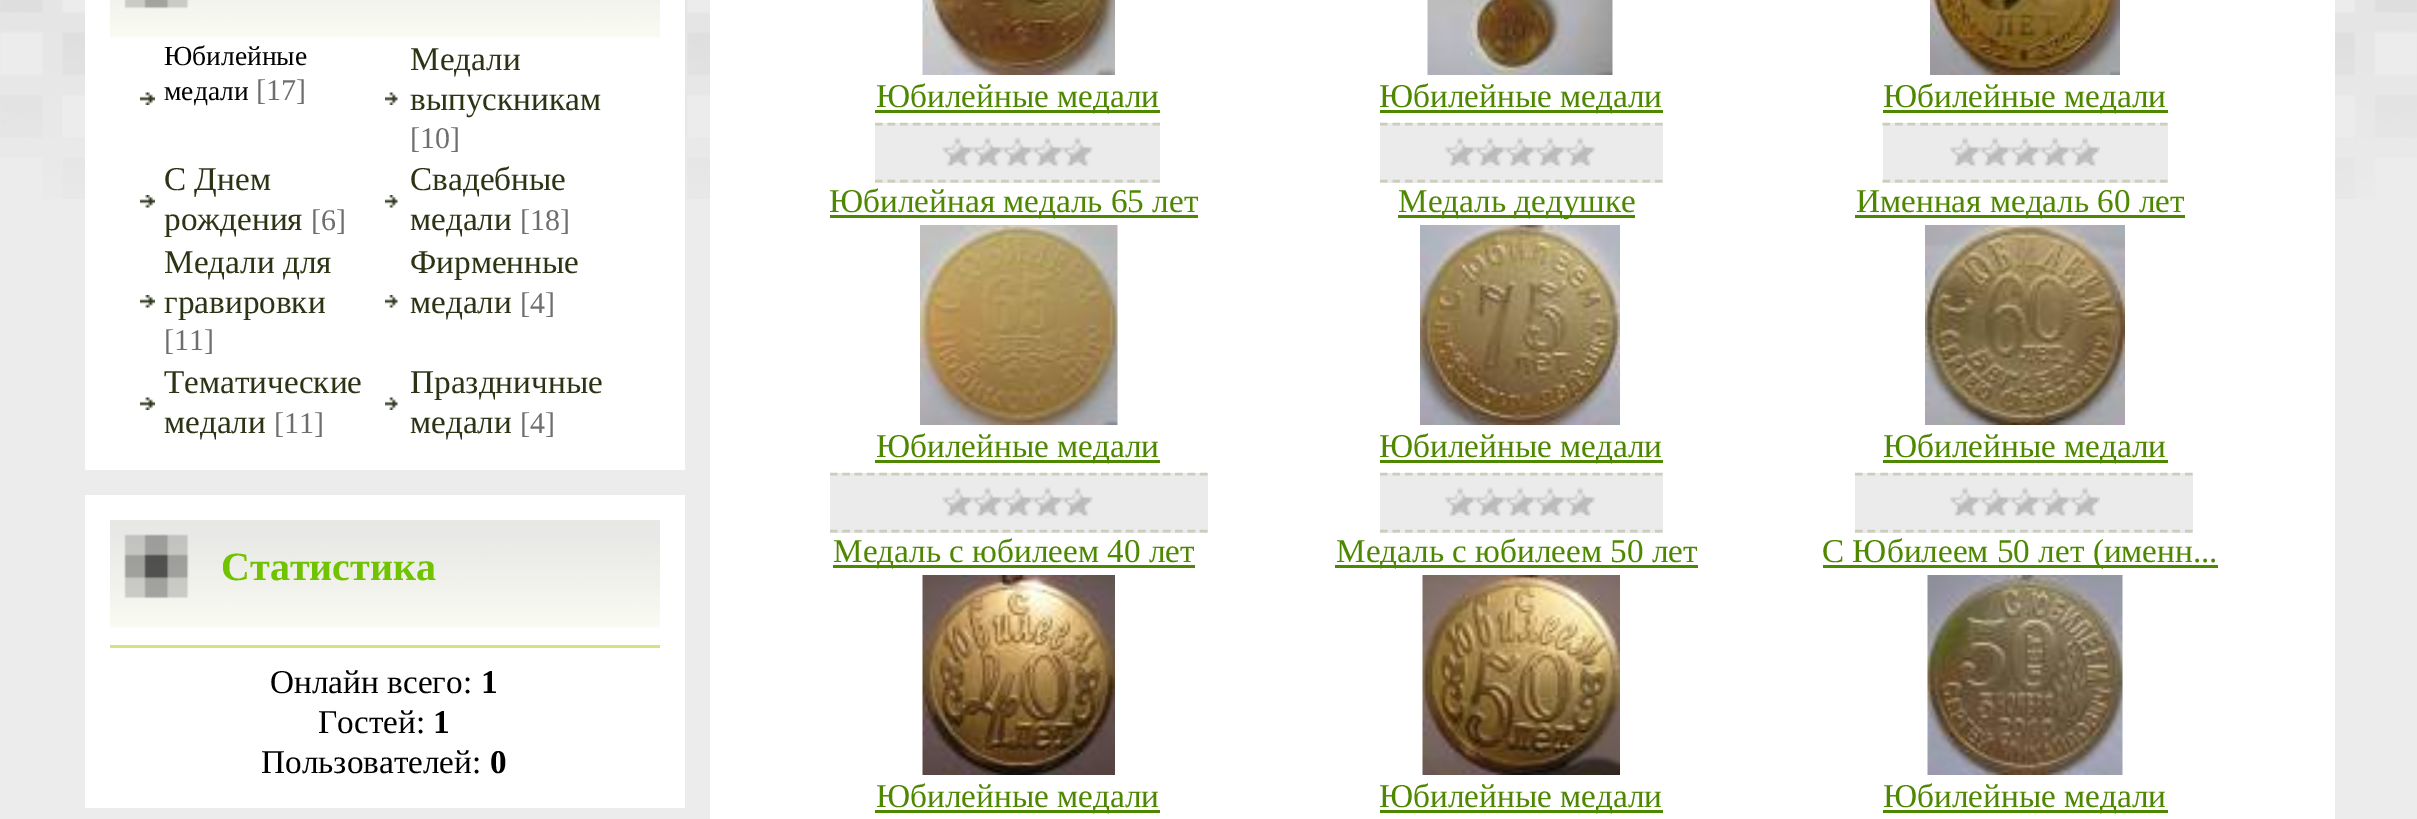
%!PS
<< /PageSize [2417 819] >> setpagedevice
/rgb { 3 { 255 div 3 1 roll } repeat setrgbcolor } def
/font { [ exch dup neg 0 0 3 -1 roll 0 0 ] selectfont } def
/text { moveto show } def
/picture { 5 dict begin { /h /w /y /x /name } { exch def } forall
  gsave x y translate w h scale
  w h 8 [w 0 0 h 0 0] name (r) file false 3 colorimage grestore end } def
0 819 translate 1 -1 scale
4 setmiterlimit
236 236 236 rgb
0 0 2417 819 rectfill
(img_01.rgb) 0 0 2417 199 picture
255 255 255 rgb
85 0 600 470 rectfill
(img_02.rgb) 110 0 550 38 picture
(img_03.rgb) 140 92 15 13 picture
(img_04.rgb) 385 92 13 13 picture
(img_05.rgb) 140 195 15 13 picture
(img_06.rgb) 385 195 13 13 picture
(img_05.rgb) 140 295 15 13 picture
(img_06.rgb) 385 295 13 13 picture
(img_03.rgb) 140 397 15 13 picture
(img_04.rgb) 385 397 13 13 picture
85 495 600 313 rectfill
(img_07.rgb) 110 520 550 108 picture
214 227 125 rgb
110 645 550 3 rectfill
255 255 255 rgb
710 0 1625 819 rectfill
(img_08.rgb) 922 0 193 75 picture
78 135 0 rgb
875 110 285 3 rectfill
235 235 235 rgb
875 123 285 60 rectfill
203 206 188 rgb
2.5 setlinewidth
[7.5 5.12] 0 setdash
875 124 moveto 285 0 rlineto stroke
875 181 moveto 285 0 rlineto stroke
(img_09.rgb) 942 137 151 31 picture
(img_10.rgb) 1427 0 186 75 picture
78 135 0 rgb
1380 110 283 3 rectfill
235 235 235 rgb
1380 123 283 60 rectfill
203 206 188 rgb
[7.5 5] 0 setdash
1380 124 moveto 282.5 0 rlineto stroke
1380 181 moveto 282.5 0 rlineto stroke
(img_11.rgb) 1445 137 150 31 picture
(img_12.rgb) 1930 0 190 75 picture
78 135 0 rgb
1883 110 285 3 rectfill
235 235 235 rgb
1883 123 285 60 rectfill
203 206 188 rgb
[7.5 5.12] 0 setdash
1882.5 124 moveto 285 0 rlineto stroke
1882.5 181 moveto 285 0 rlineto stroke
(img_13.rgb) 1950 137 150 31 picture
78 135 0 rgb
830 215 368 3 rectfill
(img_14.rgb) 920 225 198 200 picture
875 460 285 3 rectfill
235 235 235 rgb
830 473 378 60 rectfill
203 206 188 rgb
[7.5 4.83] 0 setdash
830 474 moveto 377.5 0 rlineto stroke
830 531 moveto 377.5 0 rlineto stroke
(img_15.rgb) 942 487 151 31 picture
78 135 0 rgb
1398 215 237 3 rectfill
(img_16.rgb) 1420 225 200 200 picture
1380 460 283 3 rectfill
235 235 235 rgb
1380 473 283 60 rectfill
203 206 188 rgb
[7.5 5] 0 setdash
1380 474 moveto 282.5 0 rlineto stroke
1380 531 moveto 282.5 0 rlineto stroke
(img_17.rgb) 1445 487 150 31 picture
78 135 0 rgb
1855 215 330 3 rectfill
(img_18.rgb) 1925 225 200 200 picture
1883 460 285 3 rectfill
235 235 235 rgb
1855 473 338 60 rectfill
203 206 188 rgb
[7.5 5.2] 0 setdash
1855 474 moveto 337.5 0 rlineto stroke
1855 531 moveto 337.5 0 rlineto stroke
(img_19.rgb) 1950 487 150 31 picture
78 135 0 rgb
833 565 362 3 rectfill
(img_20.rgb) 922 575 193 200 picture
875 810 285 3 rectfill
1335 565 363 3 rectfill
(img_21.rgb) 1422 575 198 200 picture
1380 810 283 3 rectfill
1823 565 395 3 rectfill
(img_22.rgb) 1927 575 196 200 picture
1883 810 285 3 rectfill
/LiberationSerif-Regular 27.5 font
0 0 0 rgb
(Юбилейные) 164 65 text
(медали) 164 100 text
/LiberationSerif-Regular 30 font
110 110 110 rgb
([17]) 256 100 text
/LiberationSerif-Regular 33.25 font
43 52 20 rgb
(Медали) 410 70 text
(выпускникам) 410 110 text
/LiberationSerif-Regular 30 font
110 110 110 rgb
([10]) 410 148 text
/LiberationSerif-Regular 33.25 font
43 52 20 rgb
(С Днем) 164 190 text
(рождения) 164 230 text
/LiberationSerif-Regular 30 font
110 110 110 rgb
([6]) 311 230 text
/LiberationSerif-Regular 33.25 font
43 52 20 rgb
(Свадебные) 410 190 text
(медали) 410 230 text
/LiberationSerif-Regular 30 font
110 110 110 rgb
([18]) 520 230 text
/LiberationSerif-Regular 33.25 font
43 52 20 rgb
(Медали для) 164 273 text
(гравировки) 164 313 text
/LiberationSerif-Regular 30 font
110 110 110 rgb
([11]) 164 350 text
/LiberationSerif-Regular 33.25 font
43 52 20 rgb
(Фирменные) 410 273 text
(медали) 410 313 text
/LiberationSerif-Regular 30 font
110 110 110 rgb
([4]) 520 313 text
/LiberationSerif-Regular 33.25 font
43 52 20 rgb
(Тематические) 164 393 text
(медали) 164 433 text
/LiberationSerif-Regular 30 font
110 110 110 rgb
([11]) 274 433 text
/LiberationSerif-Regular 33.25 font
43 52 20 rgb
(Праздничные) 410 393 text
(медали) 410 433 text
/LiberationSerif-Regular 30 font
110 110 110 rgb
([4]) 520 433 text
/LiberationSerif-Bold 40 font
113 194 0 rgb
(Статистика) 221 580 text
/LiberationSerif-Regular 33.25 font
0 0 0 rgb
(Онлайн всего:) 270 693 text
/LiberationSerif-Bold 33.25 font
(1) 481 693 text
/LiberationSerif-Regular 33.25 font
(Гостей:) 318 733 text
/LiberationSerif-Bold 33.25 font
(1) 433 733 text
/LiberationSerif-Regular 33.25 font
(Пользователей:) 261 773 text
/LiberationSerif-Bold 33.25 font
(0) 490 773 text
/LiberationSerif-Regular 33.25 font
78 135 0 rgb
(Юбилейные медали) 876 107 text
(Юбилейные медали) 1379 107 text
(Юбилейные медали) 1883 107 text
(Юбилейная медаль 65 лет) 829 212 text
(Юбилейные медали) 876 457 text
(Медаль дедушке) 1398 212 text
(Юбилейные медали) 1379 457 text
(Именная медаль 60 лет) 1856 212 text
(Юбилейные медали) 1883 457 text
(Медаль с юбилеем 40 лет) 833 562 text
(Юбилейные медали) 876 807 text
(Медаль с юбилеем 50 лет) 1336 562 text
(Юбилейные медали) 1379 807 text
(С Юбилеем 50 лет \(именн...) 1822 562 text
(Юбилейные медали) 1883 807 text
showpage
